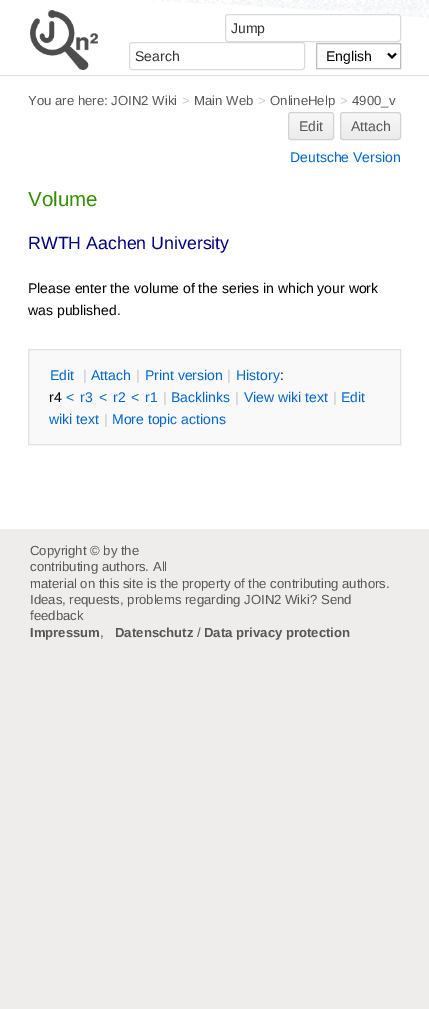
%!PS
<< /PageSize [429 1009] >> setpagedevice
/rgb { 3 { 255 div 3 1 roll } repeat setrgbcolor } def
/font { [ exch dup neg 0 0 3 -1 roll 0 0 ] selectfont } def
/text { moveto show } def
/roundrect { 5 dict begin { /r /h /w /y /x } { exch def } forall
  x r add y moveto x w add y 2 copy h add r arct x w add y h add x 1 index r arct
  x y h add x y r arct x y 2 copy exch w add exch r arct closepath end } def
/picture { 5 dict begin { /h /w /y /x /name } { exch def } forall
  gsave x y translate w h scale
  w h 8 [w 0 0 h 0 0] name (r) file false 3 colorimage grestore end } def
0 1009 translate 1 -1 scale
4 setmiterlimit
238 237 236 rgb
0 0 429 1009 rectfill
223 223 223 rgb
0 75 429 1 rectfill
255 255 255 rgb
0 0 429 75 rectfill
(img_01.rgb) 130 0 299 18 picture
(img_02.rgb) 30 10 68 60 picture
225.5 14.5 175 27 2.5 roundrect gsave fill grestore
218 218 218 rgb
stroke
129.5 42.5 175 27 2.5 roundrect stroke
187 187 187 rgb
316.5 43.5 84 25 rectstroke
0 0 0 rgb
2 setlinewidth
388 53.5 moveto 4 4 rlineto 4 -4 rlineto stroke
255 255 255 rgb
0 76 429 453 rectfill
gsave
288 112 46 28 3 roundrect clip newpath
gsave 288 113 moveto 46 0 rlineto 0 26 rlineto -46 0 rlineto closepath clip newpath
<< /ShadingType 2 /ColorSpace /DeviceRGB /Coords [311 113 311 139] /Extend [true true] /Function << /FunctionType 2 /Domain [0 1] /C0 [0.973 0.973 0.973] /C1 [0.922 0.922 0.922] /N 1 >> >> shfill grestore
grestore
210 210 210 rgb
1 setlinewidth
288.5 112.5 45 27 2.5 roundrect stroke
gsave
340 112 61 28 3 roundrect clip newpath
gsave 340 113 moveto 61 0 rlineto 0 26 rlineto -61 0 rlineto closepath clip newpath
<< /ShadingType 2 /ColorSpace /DeviceRGB /Coords [371 113 371 139] /Extend [true true] /Function << /FunctionType 2 /Domain [0 1] /C0 [0.973 0.973 0.973] /C1 [0.922 0.922 0.922] /N 1 >> >> shfill grestore
grestore
340.5 112.5 60 27 2.5 roundrect stroke
249 249 250 rgb
28.5 349.5 moveto 372 0 rlineto 0 95 rlineto -372 0 rlineto closepath gsave fill grestore
226 226 226 rgb
stroke
/LiberationSans-Regular 14 font
51 51 51 rgb
(Jump) 231 33 text
(Search) 135 61 text
0 0 0 rgb
(English) 326 61 text
/LiberationSans-Regular 13.15 font
86 86 86 rgb
(You are here: JOIN2 Wiki) 28 105 text
204 204 204 rgb
(>) 182 105 text
86 86 86 rgb
(Main Web) 194 105 text
204 204 204 rgb
(>) 258 105 text
86 86 86 rgb
(OnlineHelp) 270 105 text
204 204 204 rgb
(>) 340 105 text
86 86 86 rgb
(4900_v) 352 105 text
/LiberationSans-Regular 14 font
(Edit) 299 131 text
(Attach) 351 131 text
0 102 204 rgb
(Deutsche Version) 290 162 text
/LiberationSans-Regular 20.5 font
51 144 0 rgb
(Volume) 28 206 text
/LiberationSans-Regular 17.75 font
0 0 128 rgb
(RWTH Aachen University) 28 249 text
/LiberationSans-Regular 14 font
0 0 0 rgb
(Please enter the volume of the series in which your work) 28 293 text
(was published.) 28 315 text
0 102 204 rgb
(Edit) 50 380 text
204 204 204 rgb
(|) 83 380 text
0 102 204 rgb
(Attach) 91 380 text
204 204 204 rgb
(|) 136 380 text
0 102 204 rgb
(Print version) 145 380 text
204 204 204 rgb
(|) 227 380 text
0 102 204 rgb
(History) 236 380 text
0 0 0 rgb
(:) 280 380 text
(r4) 49 402 text
0 102 204 rgb
(<) 66 402 text
(r3) 80 402 text
(<) 99 402 text
(r2) 113 402 text
(<) 131 402 text
(r1) 145 402 text
204 204 204 rgb
(|) 163 402 text
0 102 204 rgb
(Backlinks) 171 402 text
204 204 204 rgb
(|) 235 402 text
0 102 204 rgb
(View wiki text) 244 402 text
204 204 204 rgb
(|) 333 402 text
0 102 204 rgb
(Edit) 341 402 text
(wiki text) 49 424 text
204 204 204 rgb
(|) 104 424 text
0 102 204 rgb
(More topic actions) 112 424 text
/LiberationSans-Regular 13.15 font
86 86 86 rgb
(Copyright © by the) 30 555 text
(contributing authors. All) 30 571 text
(material on this site is the property of the contributing authors.) 30 588 text
(Ideas, requests, problems regarding JOIN2 Wiki? Send) 30 604 text
(feedback) 30 620 text
/LiberationSans-Bold 13.15 font
(Impressum) 30 637 text
/LiberationSans-Regular 13.15 font
(,) 100 637 text
/LiberationSans-Bold 13.15 font
(Datenschutz) 115 637 text
/LiberationSans-Regular 13.15 font
(/) 197 637 text
/LiberationSans-Bold 13.15 font
(Data privacy protection) 204 637 text
showpage
